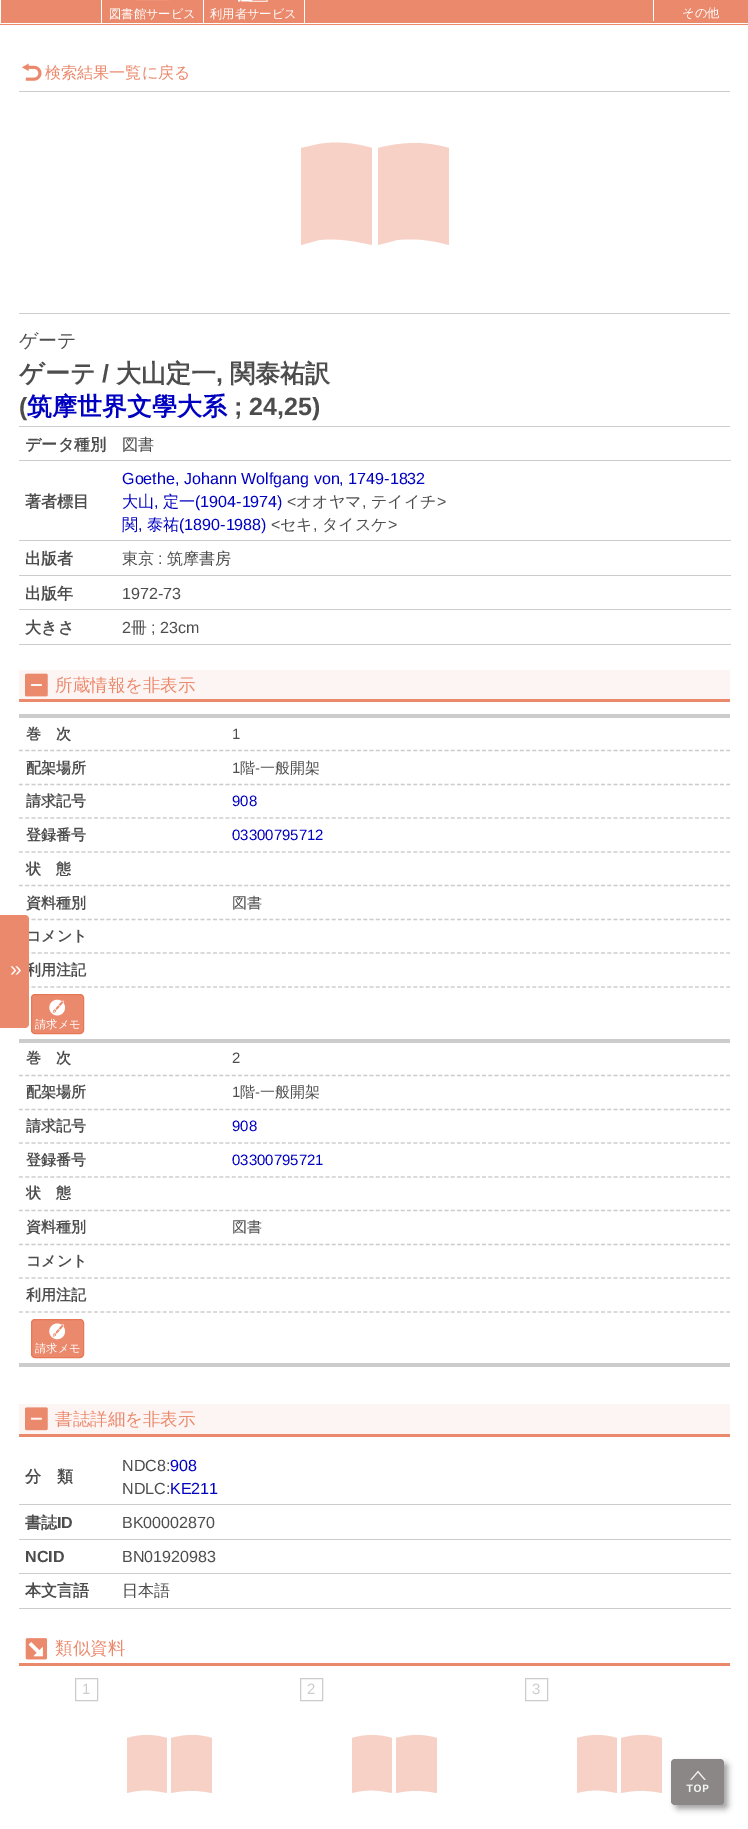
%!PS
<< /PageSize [748 1829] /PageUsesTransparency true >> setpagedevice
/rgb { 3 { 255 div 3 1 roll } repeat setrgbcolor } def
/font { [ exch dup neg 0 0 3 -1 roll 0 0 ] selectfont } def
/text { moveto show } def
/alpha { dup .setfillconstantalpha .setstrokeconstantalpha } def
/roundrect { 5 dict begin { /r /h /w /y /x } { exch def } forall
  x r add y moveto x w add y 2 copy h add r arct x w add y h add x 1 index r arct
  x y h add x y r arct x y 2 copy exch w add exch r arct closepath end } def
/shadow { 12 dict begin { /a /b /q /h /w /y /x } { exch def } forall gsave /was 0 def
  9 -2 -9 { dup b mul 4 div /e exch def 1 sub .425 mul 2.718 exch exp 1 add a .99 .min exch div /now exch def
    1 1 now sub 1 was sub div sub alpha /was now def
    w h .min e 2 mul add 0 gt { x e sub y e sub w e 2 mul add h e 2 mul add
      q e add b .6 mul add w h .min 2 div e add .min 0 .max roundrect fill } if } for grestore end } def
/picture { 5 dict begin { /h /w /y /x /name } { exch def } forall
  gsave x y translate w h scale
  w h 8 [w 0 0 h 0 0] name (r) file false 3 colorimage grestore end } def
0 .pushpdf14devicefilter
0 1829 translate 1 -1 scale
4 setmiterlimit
255 255 255 rgb
0 0 748 1829 rectfill
235 137 108 rgb
1 0 747 23 rectfill
255 255 255 rgb
101 0 1 23 rectfill
203 0 1 23 rectfill
(img_01.rgb) 136 0 34 1 picture
304 0 1 23 rectfill
(img_02.rgb) 238 0 30 2 picture
653 0 1 21 rectfill
235 137 108 rgb
0 24 748 1 rectfill
204 204 204 rgb
19 91 711 1 rectfill
(img_03.rgb) 22 63 20 18 picture
247 209 198 rgb
415 143 moveto -13 0 -25 2 -37 5 rcurveto 0 97 rlineto 19 -5 rlineto 18 -2 34 0 52 5 rcurveto 0 -97 rlineto -11 -3 -22 -5 -34 -5 rcurveto closepath 301 148 moveto 0 97 rlineto 18 -5 rlineto 18 -2 36 1 53 5 rcurveto 0 -97 rlineto -17 -5 -36 -7 -53 -4 rcurveto closepath fill
204 204 204 rgb
19 313 711 1 rectfill
19 426 711 1 rectfill
19 460 712 1 rectfill
19 540 712 1 rectfill
19 575 712 1 rectfill
19 609 712 1 rectfill
19 644 712 1 rectfill
253 245 243 rgb
19 670 711 29 rectfill
235 137 108 rgb
19 699 711 3 rectfill
(img_04.rgb) 25 673 23 24 picture
204 204 204 rgb
19 714 711 4 rectfill
19 1039 711 4 rectfill
1.2 setlinewidth
[3.75 2.51] 0 setdash
19 750.5 moveto 711 0 rlineto stroke
19 784.5 moveto 711 0 rlineto stroke
19 818 moveto 711 0 rlineto stroke
19 852 moveto 711 0 rlineto stroke
19 885.5 moveto 711 0 rlineto stroke
19 919.5 moveto 711 0 rlineto stroke
19 953 moveto 711 0 rlineto stroke
19 987 moveto 711 0 rlineto stroke
235 137 108 rgb
31.5 994.5 52 39 3.5 roundrect gsave fill grestore
232 119 86 rgb
1 setlinewidth
[] 0 setdash
stroke
(img_05.rgb) 49 999 17 17 picture
204 204 204 rgb
19 1363 711 4 rectfill
1.2 setlinewidth
[3.75 2.51] 0 setdash
19 1075.5 moveto 711 0 rlineto stroke
19 1109.5 moveto 711 0 rlineto stroke
19 1143 moveto 711 0 rlineto stroke
19 1177 moveto 711 0 rlineto stroke
19 1210.5 moveto 711 0 rlineto stroke
19 1244.5 moveto 711 0 rlineto stroke
19 1278 moveto 711 0 rlineto stroke
19 1312 moveto 711 0 rlineto stroke
235 137 108 rgb
31.5 1319.5 52 38 3.5 roundrect gsave fill grestore
232 119 86 rgb
1 setlinewidth
[] 0 setdash
stroke
(img_06.rgb) 49 1323 17 17 picture
253 245 243 rgb
19 1404 711 30 rectfill
235 137 108 rgb
19 1434 711 3 rectfill
(img_07.rgb) 25 1407 23 24 picture
204 204 204 rgb
19 1504 712 1 rectfill
19 1539 712 1 rectfill
19 1573 712 1 rectfill
19 1608 712 1 rectfill
235 137 108 rgb
19 1663 711 3 rectfill
(img_08.rgb) 25 1638 23 22 picture
204 204 204 rgb
75.5 1678.5 22 22 rectstroke
247 209 198 rgb
192 1735 moveto -7 0 -14 1 -21 3 rcurveto 0 55 rlineto 15 -3 25 -3 41 0 rcurveto 0 -55 rlineto -7 -2 -13 -3 -20 -3 rcurveto closepath 127 1738 moveto 0 55 rlineto 15 -4 25 -3 40 0 rcurveto 0 -55 rlineto -14 -4 -26 -4 -40 0 rcurveto closepath fill
204 204 204 rgb
300.5 1678.5 22 22 rectstroke
247 209 198 rgb
417 1735 moveto -7 0 -14 1 -21 3 rcurveto 0 55 rlineto 15 -3 25 -3 41 0 rcurveto 0 -55 rlineto -7 -2 -13 -3 -20 -3 rcurveto closepath 352 1738 moveto 0 55 rlineto 15 -4 25 -3 40 0 rcurveto 0 -55 rlineto -14 -4 -26 -4 -40 0 rcurveto closepath fill
204 204 204 rgb
525.5 1678.5 22 22 rectstroke
247 209 198 rgb
642 1735 moveto -7 0 -14 1 -21 3 rcurveto 0 55 rlineto 15 -3 25 -3 41 0 rcurveto 0 -55 rlineto -7 -2 -13 -3 -20 -3 rcurveto closepath 577 1738 moveto 0 55 rlineto 15 -4 25 -3 40 0 rcurveto 0 -55 rlineto -14 -4 -26 -4 -40 0 rcurveto closepath fill
26 26 26 rgb
675 1763 53 46 4 3 0.4 shadow
139 135 135 rgb
671 1759 53 46 4 roundrect fill
(img_09.rgb) 686 1770 23 22 picture
/WenQuanYiZenHei-Medium 12.25 font
255 255 255 rgb
(図書館サービス) 109 18 text
(利用者サービス) 210 18 text
(その他) 682 17 text
/WenQuanYiZenHei-Medium 16.1 font
235 137 108 rgb
(検索結果一覧に戻る) 45 78 text
/WenQuanYiZenHei-Medium 19 font
77 77 77 rgb
(ゲーテ) 19 347 text
/WenQuanYiZenHei-Bold 25 font
(ゲーテ) 19 382 text
/LiberationSans-Bold 25 font
(/) 102 382 text
/WenQuanYiZenHei-Bold 25 font
(大山定一) 116 382 text
/LiberationSans-Bold 25 font
(,) 216 382 text
/WenQuanYiZenHei-Bold 25 font
(関泰祐訳) 230 382 text
/LiberationSans-Bold 25 font
(\() 19 415 text
/WenQuanYiZenHei-Bold 25 font
0 0 192 rgb
(筑摩世界文學大系) 27 415 text
/LiberationSans-Bold 25 font
77 77 77 rgb
(; 24,25\)) 234 415 text
/WenQuanYiZenHei-Bold 16.1 font
(データ種別) 25 450 text
/WenQuanYiZenHei-Medium 16.1 font
(図書) 122 450 text
/WenQuanYiZenHei-Bold 16.1 font
(著者標目) 25 507 text
/LiberationSans-Regular 16.1 font
0 0 192 rgb
(Goethe, Johann Wolfgang von, 1749-1832) 122 484 text
/WenQuanYiZenHei-Medium 16.1 font
(大山) 122 507 text
(定一) 163 507 text
/LiberationSans-Regular 16.1 font
(\(1904-1974\)) 195 507 text
77 77 77 rgb
(<) 287 507 text
/WenQuanYiZenHei-Medium 16.1 font
(オオヤマ) 296 507 text
(テイイチ) 371 507 text
/LiberationSans-Regular 16.1 font
(>) 437 507 text
0 0 192 rgb
(,) 154 507 text
77 77 77 rgb
(,) 362 507 text
/WenQuanYiZenHei-Medium 16.1 font
0 0 192 rgb
(関) 122 530 text
(泰祐) 147 530 text
/LiberationSans-Regular 16.1 font
(\(1890-1988\)) 179 530 text
77 77 77 rgb
(<) 271 530 text
/WenQuanYiZenHei-Medium 16.1 font
(セキ) 280 530 text
(タイスケ) 322 530 text
/LiberationSans-Regular 16.1 font
(>) 388 530 text
0 0 192 rgb
(,) 138 530 text
77 77 77 rgb
(,) 313 530 text
/WenQuanYiZenHei-Bold 16.1 font
(出版者) 25 564 text
/WenQuanYiZenHei-Medium 16.1 font
(東京) 122 564 text
/LiberationSans-Regular 16.1 font
(:) 158 564 text
/WenQuanYiZenHei-Medium 16.1 font
(筑摩書房) 167 564 text
/WenQuanYiZenHei-Bold 16.1 font
(出版年) 25 599 text
/LiberationSans-Regular 16.1 font
(1972-73) 122 599 text
/WenQuanYiZenHei-Bold 16.1 font
(大きさ) 25 633 text
/LiberationSans-Regular 16.1 font
(2) 122 633 text
/WenQuanYiZenHei-Medium 16.1 font
(冊) 131 633 text
/LiberationSans-Regular 16.1 font
(; 23cm) 151 633 text
/WenQuanYiZenHei-Medium 17.5 font
235 137 108 rgb
(所蔵情報を非表示) 55 691 text
/WenQuanYiZenHei-Bold 15 font
77 77 77 rgb
(巻　次) 26 739 text
/LiberationSans-Regular 15 font
(1) 232 739 text
/WenQuanYiZenHei-Bold 15 font
(配架場所) 26 773 text
/LiberationSans-Regular 15 font
(1) 232 773 text
/WenQuanYiZenHei-Medium 15 font
(階) 240 773 text
/LiberationSans-Regular 15 font
(-) 255 773 text
/WenQuanYiZenHei-Medium 15 font
(一般開架) 260 773 text
/WenQuanYiZenHei-Bold 15 font
(請求記号) 26 806 text
/LiberationSans-Regular 15 font
0 0 192 rgb
(908) 232 806 text
/WenQuanYiZenHei-Bold 15 font
77 77 77 rgb
(登録番号) 26 840 text
/LiberationSans-Regular 15 font
0 0 192 rgb
(03300795712) 232 840 text
/WenQuanYiZenHei-Bold 15 font
77 77 77 rgb
(状　態) 26 874 text
(資料種別) 26 908 text
/WenQuanYiZenHei-Medium 15 font
(図書) 232 908 text
/WenQuanYiZenHei-Bold 15 font
(コメント) 26 941 text
(利用注記) 26 975 text
235 137 108 rgb
-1 915 moveto 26 0 rlineto 2 0 4 2 4 4 rcurveto 0 105 rlineto 0 2 -2 4 -4 4 rcurveto -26 0 rlineto closepath fill
/LiberationSans-Regular 21 font
255 255 255 rgb
(») 10 976 text
/WenQuanYiZenHei-Medium 11.25 font
(請求メモ) 35 1028 text
/WenQuanYiZenHei-Bold 15 font
77 77 77 rgb
(巻　次) 26 1063 text
/LiberationSans-Regular 15 font
(2) 232 1063 text
/WenQuanYiZenHei-Bold 15 font
(配架場所) 26 1097 text
/LiberationSans-Regular 15 font
(1) 232 1097 text
/WenQuanYiZenHei-Medium 15 font
(階) 240 1097 text
/LiberationSans-Regular 15 font
(-) 255 1097 text
/WenQuanYiZenHei-Medium 15 font
(一般開架) 260 1097 text
/WenQuanYiZenHei-Bold 15 font
(請求記号) 26 1131 text
/LiberationSans-Regular 15 font
0 0 192 rgb
(908) 232 1131 text
/WenQuanYiZenHei-Bold 15 font
77 77 77 rgb
(登録番号) 26 1165 text
/LiberationSans-Regular 15 font
0 0 192 rgb
(03300795721) 232 1165 text
/WenQuanYiZenHei-Bold 15 font
77 77 77 rgb
(状　態) 26 1198 text
(資料種別) 26 1232 text
/WenQuanYiZenHei-Medium 15 font
(図書) 232 1232 text
/WenQuanYiZenHei-Bold 15 font
(コメント) 26 1266 text
(利用注記) 26 1300 text
/WenQuanYiZenHei-Medium 11.25 font
255 255 255 rgb
(請求メモ) 35 1352 text
/WenQuanYiZenHei-Medium 17.5 font
235 137 108 rgb
(書誌詳細を非表示) 55 1425 text
/WenQuanYiZenHei-Bold 16.1 font
77 77 77 rgb
(分　類) 25 1482 text
/LiberationSans-Regular 16.1 font
(NDC8:) 122 1471 text
0 0 192 rgb
(908) 170 1471 text
77 77 77 rgb
(NDLC:) 122 1494 text
0 0 192 rgb
(KE211) 170 1494 text
/WenQuanYiZenHei-Bold 16.1 font
77 77 77 rgb
(書誌) 25 1528 text
/LiberationSans-Bold 16.1 font
(ID) 57 1528 text
/LiberationSans-Regular 16.1 font
(BK00002870) 122 1528 text
/LiberationSans-Bold 16.1 font
(NCID) 25 1562 text
/LiberationSans-Regular 16.1 font
(BN01920983) 122 1562 text
/WenQuanYiZenHei-Bold 16.1 font
(本文言語) 25 1596 text
/WenQuanYiZenHei-Medium 16.1 font
(日本語) 122 1596 text
/WenQuanYiZenHei-Medium 17.5 font
235 137 108 rgb
(類似資料) 55 1654 text
/LiberationSans-Regular 15 font
204 204 204 rgb
(1) 82 1694 text
(2) 307 1694 text
(3) 532 1694 text
.poppdf14devicefilter showpage
